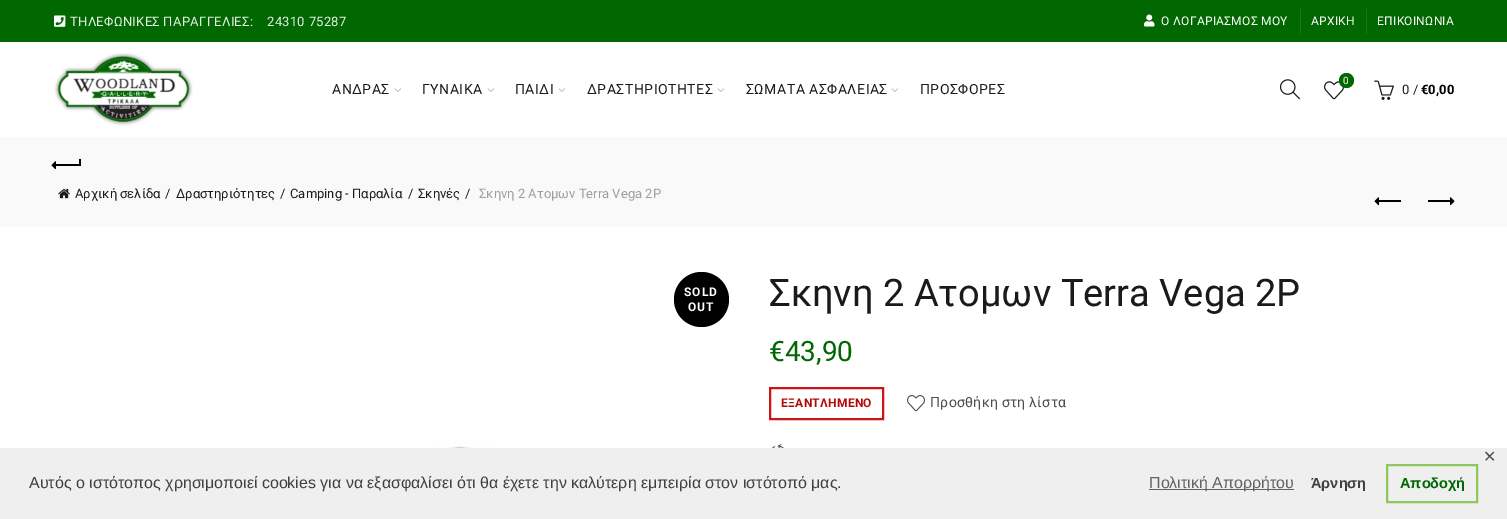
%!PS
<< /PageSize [1507 519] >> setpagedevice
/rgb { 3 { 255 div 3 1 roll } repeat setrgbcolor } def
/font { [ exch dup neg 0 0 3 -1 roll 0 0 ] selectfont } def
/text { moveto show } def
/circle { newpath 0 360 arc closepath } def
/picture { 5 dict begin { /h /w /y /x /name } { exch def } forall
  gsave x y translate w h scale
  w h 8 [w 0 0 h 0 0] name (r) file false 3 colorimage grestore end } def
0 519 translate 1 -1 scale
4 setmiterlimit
255 255 255 rgb
0 0 1507 519 rectfill
1 103 1 rgb
0 0 1507 42 rectfill
(img_01.rgb) 54 15 12 12 picture
(img_02.rgb) 1144 14 11 13 picture
26 118 26 rgb
1300 9 1 25 rectfill
1366 9 1 25 rectfill
(img_03.rgb) 54 53 139 73 picture
(img_04.rgb) 394 88 8 4 picture
(img_04.rgb) 487 88 8 4 picture
(img_04.rgb) 558 88 8 4 picture
(img_04.rgb) 717 88 8 4 picture
(img_04.rgb) 891 88 8 4 picture
(img_05.rgb) 1280 79 20 21 picture
(img_06.rgb) 1324 81 20 19 picture
1 103 1 rgb
1346.5 80.5 7.5 circle fill
(img_07.rgb) 1374 80 20 20 picture
249 249 249 rgb
0 137 1507 90 rectfill
0 0 0 rgb
55 164 25 2 rectfill
(img_08.rgb) 51 161 5 9 picture
79 159 2 7 rectfill
(img_09.rgb) 58 188 12 11 picture
1378 200 23 2 rectfill
(img_08.rgb) 1374 197 5 9 picture
1428 200 23 2 rectfill
(img_10.rgb) 1450 197 5 9 picture
701.5 299.5 27.5 circle fill
(img_11.rgb) 329 446 272 2 picture
204 20 20 rgb
2 setlinewidth
770 388 113 31 rectstroke
(img_12.rgb) 907 395 18 17 picture
(img_13.rgb) 772 444 12 4 picture
239 239 239 rgb
0 448 1507 71 rectfill
99 99 99 rgb
1149 489 145 1 rectfill
142 199 96 rgb
1387 465 90 37 rectstroke
/Roboto-Regular 13 font
230 240 230 rgb
70 26 moveto 0.3 0 (ΤΗΛΕΦΩΝΙΚΕΣ ΠΑΡΑΓΓΕΛΙΕΣ:) ashow
267 26 moveto 0.3 0 (24310 75287) ashow
/Roboto-Regular 12 font
255 255 255 rgb
1161 25 moveto 0.3 0 (Ο ΛΟΓΑΡΙΑΣΜΟΣ ΜΟΥ) ashow
1311 25 moveto 0.3 0 (ΑΡΧΙΚΗ) ashow
1377 25 moveto 0.3 0 (ΕΠΙΚΟΙΝΩΝΙΑ) ashow
/Roboto-Regular 14 font
27 25 25 rgb
332 94 moveto 0.5 0 (ΑΝΔΡΑΣ) ashow
422 94 moveto 0.5 0 (ΓΥΝΑΙΚΑ) ashow
515 94 moveto 0.5 0 (ΠΑΙΔΙ) ashow
587 94 moveto 0.5 0 (ΔΡΑΣΤΗΡΙΟΤΗΤΕΣ) ashow
746 94 moveto 0.5 0 (ΣΩΜΑΤΑ ΑΣΦΑΛΕΙΑΣ) ashow
920 94 moveto 0.5 0 (ΠΡΟΣΦΟΡΕΣ) ashow
/Roboto-Regular 10 font
255 255 255 rgb
(0) 1343 84 text
/Roboto-Regular 13 font
27 25 25 rgb
(0 /) 1402 94 text
/Roboto-Bold 13 font
0 0 0 rgb
(€0,00) 1421 94 text
/Roboto-Regular 13 font
27 25 25 rgb
(Αρχική σελίδα) 75 198 text
(/) 165 198 text
(Δραστηριότητες) 176 198 text
(/) 280 198 text
(Camping - Παραλία) 290 198 text
(/) 408 198 text
(Σκηνές) 418 198 text
(/) 465 198 text
158 158 158 rgb
(Σκηνη 2 Ατομων Terra Vega 2P) 479 198 text
/Roboto-Bold 12 font
255 255 255 rgb
684 296 moveto 1 0 (SOLD) ashow
688 311 moveto 1 0 (OUT) ashow
/Roboto-Regular 38 font
27 25 25 rgb
(Σκηνη 2 Ατομων Terra Vega 2P) 769 306 text
/Roboto-Regular 28 font
1 103 1 rgb
(€43,90) 769 361 text
/Roboto-Bold 12 font
181 8 8 rgb
781 407 moveto 0.3 0 (ΕΞΑΝΤΛΗΜΕΝΟ) ashow
/Roboto-Regular 14 font
78 78 78 rgb
930 407 moveto 0.3 0 (Προσθήκη στη λίστα) ashow
/DejaVuSans-Regular 16 font
(✕) 1483 462 text
/LiberationSans-Regular 16 font
64 64 64 rgb
(Αυτός ο ιστότοπος χρησιμοποιεί cookies για να εξασφαλίσει ότι θα έχετε την καλύτερη εμπειρία στον ιστότοπό μας.) 29 488 text
99 99 99 rgb
(Πολιτική Απορρήτου) 1149 488 text
/LiberationSans-Bold 14.5 font
64 64 64 rgb
(Άρνηση) 1311 488 text
1 103 1 rgb
(Αποδοχή) 1400 488 text
showpage
